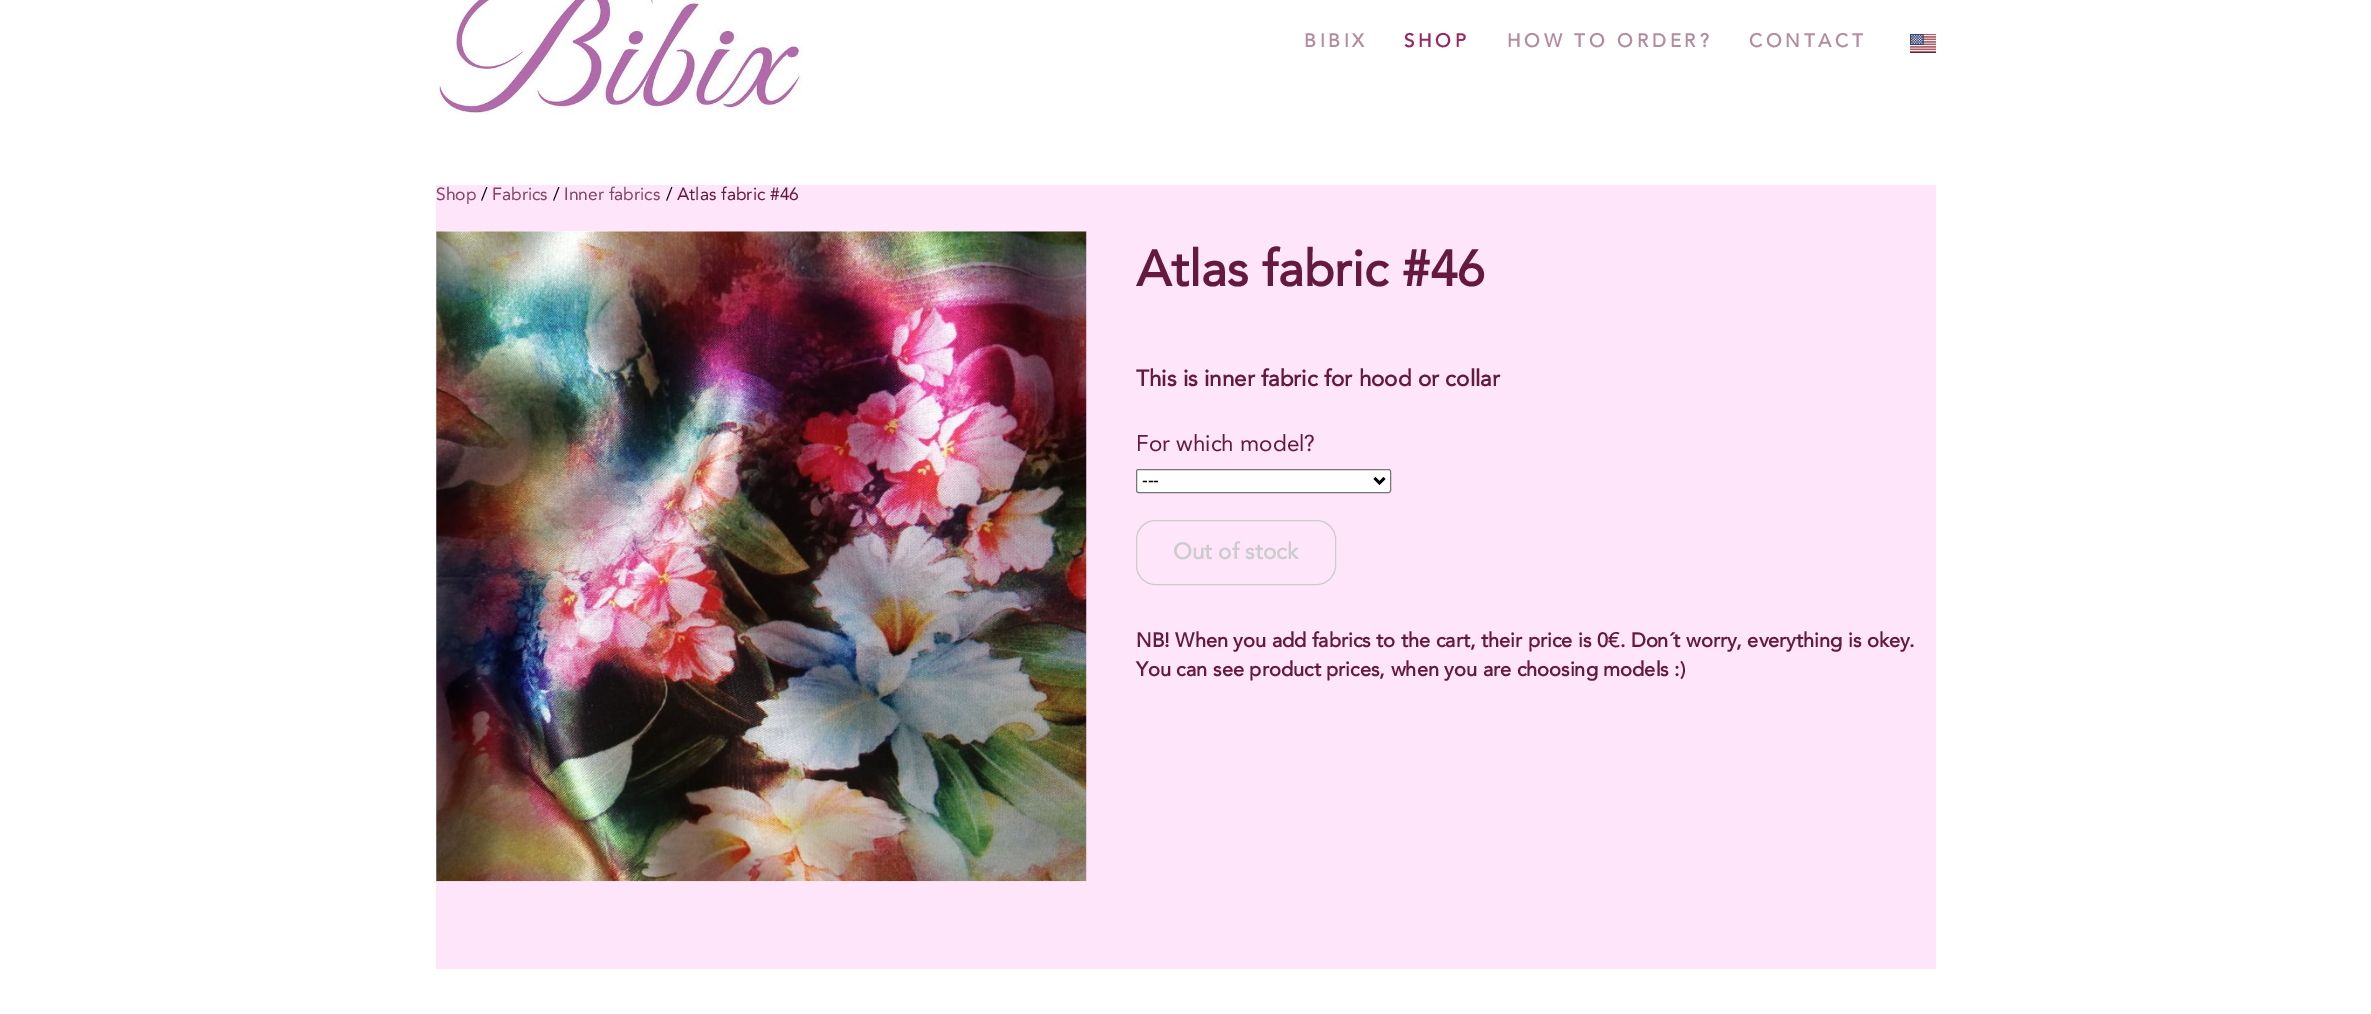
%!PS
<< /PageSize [2371 1014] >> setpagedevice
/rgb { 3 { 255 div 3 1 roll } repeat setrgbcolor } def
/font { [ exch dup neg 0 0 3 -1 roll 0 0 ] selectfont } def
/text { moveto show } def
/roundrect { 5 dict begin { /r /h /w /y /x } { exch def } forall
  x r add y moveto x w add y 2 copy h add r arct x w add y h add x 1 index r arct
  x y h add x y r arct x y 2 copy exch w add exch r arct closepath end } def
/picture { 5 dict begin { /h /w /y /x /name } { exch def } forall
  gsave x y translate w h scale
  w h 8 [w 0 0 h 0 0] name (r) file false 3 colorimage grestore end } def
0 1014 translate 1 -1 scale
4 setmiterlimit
255 255 255 rgb
0 0 2371 1014 rectfill
(img_01.rgb) 436 0 367 115 picture
0 0 0 rgb
1910 34 26 19 rectfill
(img_02.rgb) 1910 34 26 19 picture
254 229 249 rgb
436 185 1500 784 rectfill
255 255 255 rgb
436 231 650 650 rectfill
(img_03.rgb) 436 231 651 651 picture
1136.5 469.5 254 23 2 roundrect gsave fill grestore
118 118 118 rgb
stroke
0 0 0 rgb
2.5 setlinewidth
1374.5 478 moveto 5 5 rlineto 5 -5 rlineto stroke
204 204 204 rgb
1 setlinewidth
1136.5 520.5 199 64 18.5 roundrect stroke
/Avenir-Bold 18.75 font
179 140 160 rgb
1304 47 moveto 3.75 0 (BIBIX) ashow
153 38 96 rgb
1404 47 moveto 3.75 0 (SHOP) ashow
179 140 160 rgb
1507 47 moveto 3.75 0 (HOW TO ORDER?) ashow
1749 47 moveto 3.75 0 (CONTACT) ashow
/Avenir-Regular 17.5 font
132 66 101 rgb
(Shop) 436 200 text
0 0 0 rgb
(/) 481 200 text
132 66 101 rgb
(Fabrics) 492 200 text
0 0 0 rgb
(/) 553 200 text
132 66 101 rgb
(Inner fabrics) 564 200 text
0 0 0 rgb
(/) 666 200 text
102 25 64 rgb
(Atlas fabric #46) 677 200 text
/Avenir-Bold 50 font
(Atlas fabric #46) 1136 286 text
/Avenir-Bold 22.5 font
(This is inner fabric for hood or collar) 1136 386 text
/Avenir-Regular 22.5 font
(For which model?) 1136 451 text
/LiberationSans-Regular 17 font
0 0 0 rgb
(---) 1142 486 text
/Avenir-Bold 22.5 font
204 204 204 rgb
(Out of stock) 1173 559 text
/Avenir-Bold 20 font
102 25 64 rgb
(NB! When you add fabrics to the cart, their price is 0€. Don´t worry, everything is okey.) 1136 647 text
(You can see product prices, when you are choosing models :\)) 1136 676 text
showpage
